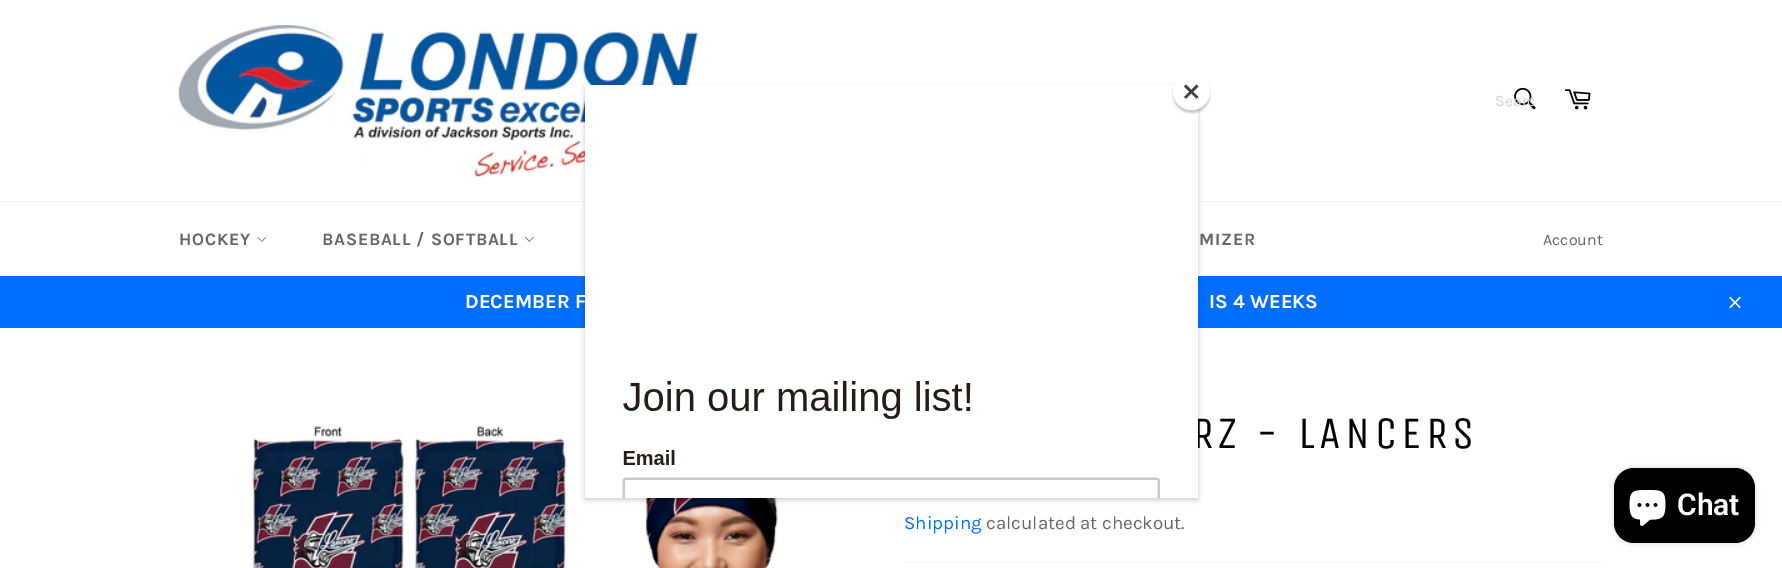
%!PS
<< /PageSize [1782 568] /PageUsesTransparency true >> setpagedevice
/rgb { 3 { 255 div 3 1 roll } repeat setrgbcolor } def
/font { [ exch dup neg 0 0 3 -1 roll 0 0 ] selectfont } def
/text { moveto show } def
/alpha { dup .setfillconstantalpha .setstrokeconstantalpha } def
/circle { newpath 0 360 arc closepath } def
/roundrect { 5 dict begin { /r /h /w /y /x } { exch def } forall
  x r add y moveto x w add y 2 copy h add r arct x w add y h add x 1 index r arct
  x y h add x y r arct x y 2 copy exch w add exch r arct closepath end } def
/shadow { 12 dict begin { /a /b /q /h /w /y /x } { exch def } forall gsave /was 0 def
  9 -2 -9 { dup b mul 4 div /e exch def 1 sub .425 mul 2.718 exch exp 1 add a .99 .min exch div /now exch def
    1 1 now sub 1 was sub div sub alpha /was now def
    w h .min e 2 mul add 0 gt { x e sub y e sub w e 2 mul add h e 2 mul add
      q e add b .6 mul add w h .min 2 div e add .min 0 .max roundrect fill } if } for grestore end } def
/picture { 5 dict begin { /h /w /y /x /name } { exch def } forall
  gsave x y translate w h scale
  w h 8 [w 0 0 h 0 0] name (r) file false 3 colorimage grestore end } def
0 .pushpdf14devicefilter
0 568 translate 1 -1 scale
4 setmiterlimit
255 255 255 rgb
0 0 1782 568 rectfill
(img_02.rgb) 178 25 564 152 picture
242 242 242 rgb
0 201 1782 1 rectfill
0 110 255 rgb
0 276 1782 52 rectfill
(img_08.rgb) 249 425 530 143 picture
0 0 0 rgb
585 88 613 412 0 2.5 0.2 shadow
(img_03.rgb) 1514 87 22 23 picture
(img_04.rgb) 1564 89 27 21 picture
(img_05.rgb) 257 236 10 6 picture
(img_06.rgb) 525 236 9 6 picture
(img_07.rgb) 1729 296 12 13 picture
247 247 247 rgb
904 561 700 1 rectfill
0 0 0 rgb
1614 468 141 75 20 3 0.15 shadow
1614 468 141 75 20 roundrect fill
(img_09.rgb) 1629 490 37 36 picture
gsave
1495 91 40 19 rectclip
/Karla-Regular 16 font
212 212 212 rgb
(Searc) 1495 106 text
grestore
/Karla-Bold 17.5 font
102 102 102 rgb
179 245 moveto 0.75 0 (HOCKEY) ashow
322 245 moveto 0.75 0 (BASEBALL / SOFTBALL) ashow
1199 245 moveto 0.75 0 (MIZER) ashow
/Karla-Regular 16 font
(Account) 1543 245 text
/Karla-Bold 20 font
255 255 255 rgb
(DECEMBER F) 465 308 text
(IS 4 WEEKS) 1209 308 text
/UnicaOne-Regular 45 font
3 3 3 rgb
1192 448 moveto 4.5 0 (RZ - LANCERS) ashow
(img_01.rgb) 585 85 613 413 picture
0 0 0 rgb
1173 75 37 38 18.5 1 0.2 shadow
255 255 255 rgb
1191.5 91.5 18.5 circle fill
65 65 65 rgb
1196.5 84.5 moveto 2 2 rlineto -12.5 12 rlineto -2 -1.5 rlineto closepath fill
1184 86.5 moveto 2 -2 rlineto 12.5 12.5 rlineto -2 1.5 rlineto closepath fill
/Karla-Regular 18.75 font
0 110 255 rgb
(Shipping) 904 529 text
102 102 102 rgb
(calculated at checkout.) 986 529 text
/Roboto-SemiBold 30 font
255 255 255 rgb
(Chat) 1677 515 text
.poppdf14devicefilter showpage
